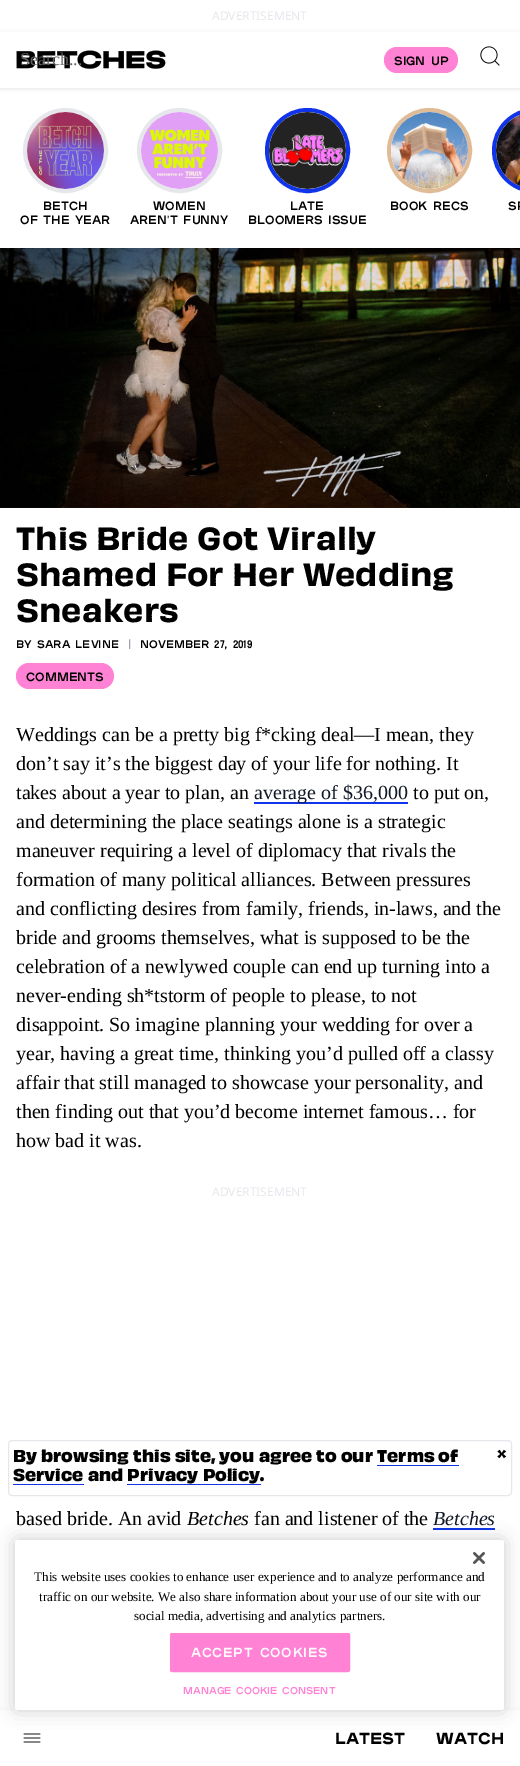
%!PS
<< /PageSize [520 1766] /PageUsesTransparency true >> setpagedevice
/rgb { 3 { 255 div 3 1 roll } repeat setrgbcolor } def
/font { [ exch dup neg 0 0 3 -1 roll 0 0 ] selectfont } def
/text { moveto show } def
/alpha { dup .setfillconstantalpha .setstrokeconstantalpha } def
/circle { newpath 0 360 arc closepath } def
/roundrect { 5 dict begin { /r /h /w /y /x } { exch def } forall
  x r add y moveto x w add y 2 copy h add r arct x w add y h add x 1 index r arct
  x y h add x y r arct x y 2 copy exch w add exch r arct closepath end } def
/shadow { 12 dict begin { /a /b /q /h /w /y /x } { exch def } forall gsave /was 0 def
  9 -2 -9 { dup b mul 4 div /e exch def 1 sub .425 mul 2.718 exch exp 1 add a .99 .min exch div /now exch def
    1 1 now sub 1 was sub div sub alpha /was now def
    w h .min e 2 mul add 0 gt { x e sub y e sub w e 2 mul add h e 2 mul add
      q e add b .6 mul add w h .min 2 div e add .min 0 .max roundrect fill } if } for grestore end } def
/picture { 5 dict begin { /h /w /y /x /name } { exch def } forall
  gsave x y translate w h scale
  w h 8 [w 0 0 h 0 0] name (r) file false 3 colorimage grestore end } def
0 .pushpdf14devicefilter
0 1766 translate 1 -1 scale
4 setmiterlimit
255 255 255 rgb
0 0 520 1766 rectfill
gsave
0 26 moveto 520 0 rlineto 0 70 rlineto -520 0 rlineto closepath 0 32 moveto 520 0 rlineto 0 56 rlineto -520 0 rlineto closepath eoclip newpath
0 0 0 rgb
0 33 520 56 0 2 0.1 shadow
grestore
(img_01.rgb) 16 50 150 19 picture
(img_02.rgb) 480 46 20 20 picture
255 130 212 rgb
384 47 74 26 13 roundrect fill
229 231 235 rgb
4 setlinewidth
65.5 150.5 40.5 circle stroke
(img_03.rgb) 27 112 77 77 picture
179.5 150.5 40.5 circle stroke
(img_04.rgb) 141 112 77 77 picture
16 52 233 rgb
307.5 150.5 40.5 circle stroke
(img_05.rgb) 269 112 77 77 picture
223 188 151 rgb
429.5 150.5 40.5 circle stroke
(img_06.rgb) 391 112 77 77 picture
16 52 233 rgb
494 110 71 81 40.5 roundrect stroke
(img_07.rgb) 496 114 24 73 picture
(img_08.rgb) 0 248 520 260 picture
255 130 212 rgb
16 663 98 26 13 roundrect fill
16 52 233 rgb
254 802 154 2 rectfill
433 1528 62 2 rectfill
229 231 235 rgb
1 setlinewidth
8.5 1440.5 503 55 3.5 roundrect stroke
16 52 233 rgb
377 1465 82 1 rectfill
13 1484 71 1 rectfill
127 1484 134 1 rectfill
0 0 0 rgb
0 1711 520 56 0 2 0.1 shadow
255 255 255 rgb
0 1710 520 56 rectfill
(img_10.rgb) 23 1733 18 10 picture
0 0 0 rgb
15 1540 489 170 2.5 9 0.2 shadow
255 255 255 rgb
15 1540 489 170 2.5 roundrect fill
(img_09.rgb) 473 1552 12 12 picture
255 130 212 rgb
170.5 1633.5 179 38 1.5 roundrect gsave fill grestore
stroke
/NotoSans-Regular 12 font
229 231 235 rgb
(ADVERTISEMENT) 212 20 text
/LiberationSerif-Regular 18 font
96 96 96 rgb
(Search...) 20 65 text
/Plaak-Bold 12 font
0 0 0 rgb
(SIGN UP) 394 65 text
(Betch) 43 210 text
(Of The Year) 20 224 text
(Women) 153 210 text
(Aren) 130 224 text
/LiberationSans-Regular 12 font
(') 167 224 text
/Plaak-Bold 12 font
(t Funny) 170 224 text
(Late) 290 210 text
(Bloomers Issue) 248 224 text
(Book Recs) 390 210 text
(Sp) 508 210 text
/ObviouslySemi-SemiBold 30 font
(This Bride Got Virally) 16 550 text
(Shamed For Her Wedding) 16 586 text
(Sneakers) 16 622 text
/Plaak-Bold 11 font
(BY SARA LEVINE) 16 648 text
156 163 175 rgb
(|) 128 648 text
0 0 0 rgb
(NOVEMBER 27, 2019) 140 648 text
/Plaak-Bold 12 font
(COMMENTS) 26 681 text
/LiberationSerif-Regular 20 font
(Weddings can be a pretty big f*cking deal—I mean, they) 16 741 text
(don’t say it’s the biggest day of your life for nothing. It) 16 770 text
(takes about a year to plan, an) 16 799 text
17 24 39 rgb
(average of $36,000) 254 799 text
0 0 0 rgb
(to put on,) 413 799 text
(and determining the place seatings alone is a strategic) 16 828 text
(maneuver requiring a level of diplomacy that rivals the) 16 857 text
(formation of many political alliances. Between pressures) 16 886 text
(and conflicting desires from family, friends, in-laws, and the) 16 915 text
(bride and grooms themselves, what is supposed to be the) 16 944 text
(celebration of a newlywed couple can end up turning into a) 16 973 text
(never-ending sh*tstorm of people to please, to not) 16 1002 text
(disappoint. So imagine planning your wedding for over a) 16 1031 text
(year, having a great time, thinking you’d pulled off a classy) 16 1060 text
(affair that still managed to showcase your personality, and) 16 1089 text
(then finding out that you’d become internet famous… for) 16 1118 text
(how bad it was.) 16 1147 text
/NotoSans-Regular 12 font
229 231 235 rgb
(ADVERTISEMENT) 212 1196 text
/LiberationSerif-Regular 20 font
0 0 0 rgb
(based bride. An avid) 16 1525 text
/LiberationSerif-Italic 20 font
(Betches) 187 1525 text
/LiberationSerif-Regular 20 font
(fan and listener of the) 254 1525 text
/LiberationSerif-Italic 20 font
17 24 39 rgb
(Betches) 433 1525 text
/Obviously-Bold 16 font
0 0 0 rgb
(By browsing this site, you agree to our Terms of) 13 1462 text
(×) 497 1460 text
(Service and Privacy Policy.) 13 1481 text
/LiberationSerif-Regular 13.1 font
(This website uses cookies to enhance user experience and to analyze performance and) 34 1581 text
(traffic on our website. We also share information about your use of our site with our) 39 1601 text
(social media, advertising and analytics partners.) 134 1620 text
/Plaak-Bold 13.1 font
254 252 255 rgb
191 1657 moveto 0.7 0 (Accept Cookies) ashow
/Plaak-Bold 10 font
255 130 212 rgb
(Manage Cookie Consent) 183 1694 text
/Plaak-Black 16 font
0 0 0 rgb
(LATEST) 335 1744 text
(WATCH) 436 1744 text
.poppdf14devicefilter showpage
